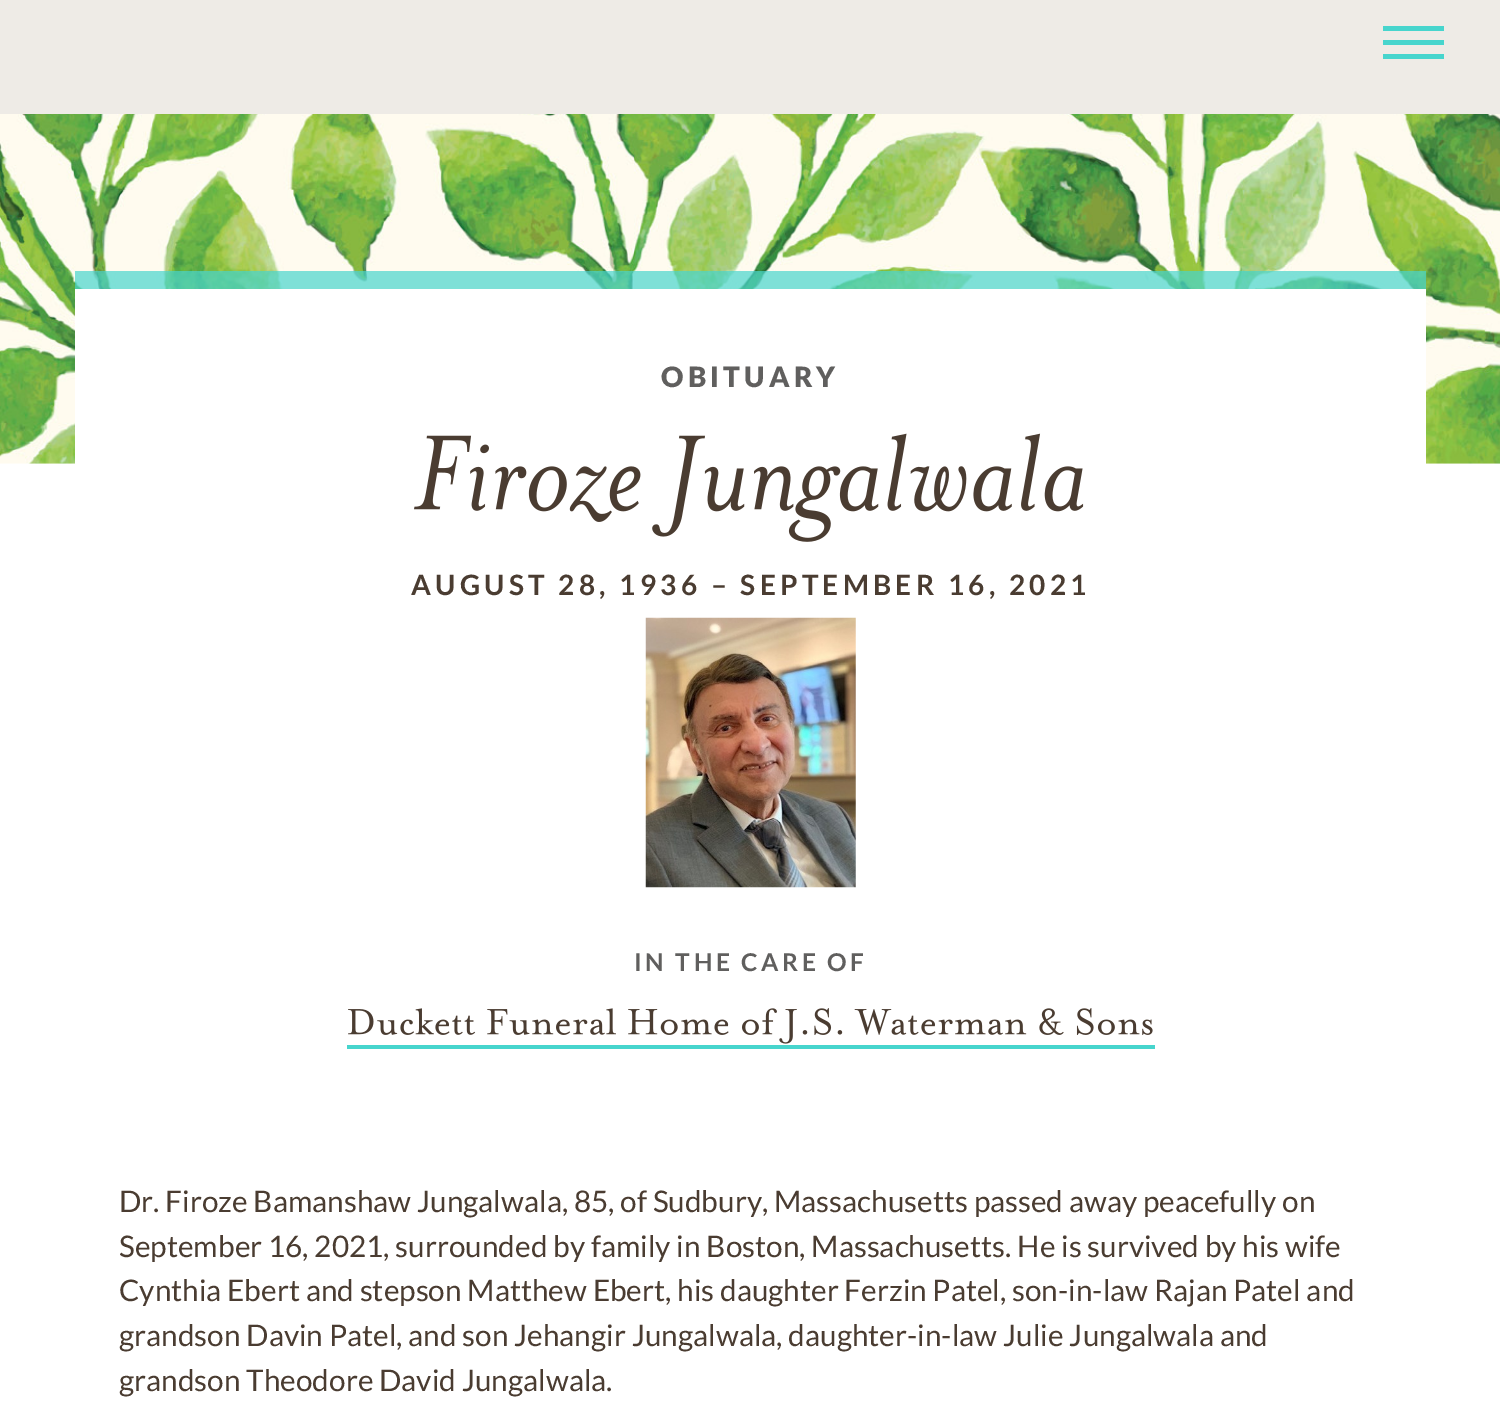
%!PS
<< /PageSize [1500 1407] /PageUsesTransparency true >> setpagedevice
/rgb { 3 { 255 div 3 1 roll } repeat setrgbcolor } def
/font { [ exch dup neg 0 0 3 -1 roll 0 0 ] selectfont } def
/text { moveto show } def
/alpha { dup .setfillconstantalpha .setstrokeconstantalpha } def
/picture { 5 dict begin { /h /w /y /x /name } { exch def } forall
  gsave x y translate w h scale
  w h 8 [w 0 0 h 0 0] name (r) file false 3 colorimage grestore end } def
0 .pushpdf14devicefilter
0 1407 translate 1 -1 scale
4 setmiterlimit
255 255 255 rgb
0 0 1500 1407 rectfill
238 235 230 rgb
0 0 1500 114 rectfill
71 213 205 rgb
1383 26 61 5 rectfill
1383 40 61 5 rectfill
1383 54 61 5 rectfill
(img_01.rgb) 0 114 1500 350 picture
255 255 255 rgb
75 289 1351 175 rectfill
0.7 alpha
71 213 205 rgb
75 271 1351 18 rectfill
1 alpha
(img_02.rgb) 414 433 670 109 picture
(img_03.rgb) 645 617 211 271 picture
(img_04.rgb) 348 1008 805 36 picture
347 1045 808 4 rectfill
/Lato-Black 28 font
96 95 94 rgb
661 387 moveto 4.2 0 (OBITUARY) ashow
/Lato-Bold 28 font
74 60 49 rgb
411 595 moveto 4.2 0 (AUGUST 28, 1936 – SEPTEMBER 16, 2021) ashow
/Lato-Bold 24.5 font
96 95 94 rgb
634 971 moveto 3.5 0 (IN THE CARE OF) ashow
/Lato-Regular 29.75 font
74 60 49 rgb
(Dr. Firoze Bamanshaw Jungalwala, 85, of Sudbury, Massachusetts passed away peacefully on) 119 1212 text
(September 16, 2021, surrounded by family in Boston, Massachusetts. He is survived by his wife) 119 1257 text
(Cynthia Ebert and stepson Matthew Ebert, his daughter Ferzin Patel, son-in-law Rajan Patel and) 119 1301 text
(grandson Davin Patel, and son Jehangir Jungalwala, daughter-in-law Julie Jungalwala and) 119 1346 text
(grandson Theodore David Jungalwala.) 119 1391 text
.poppdf14devicefilter showpage
